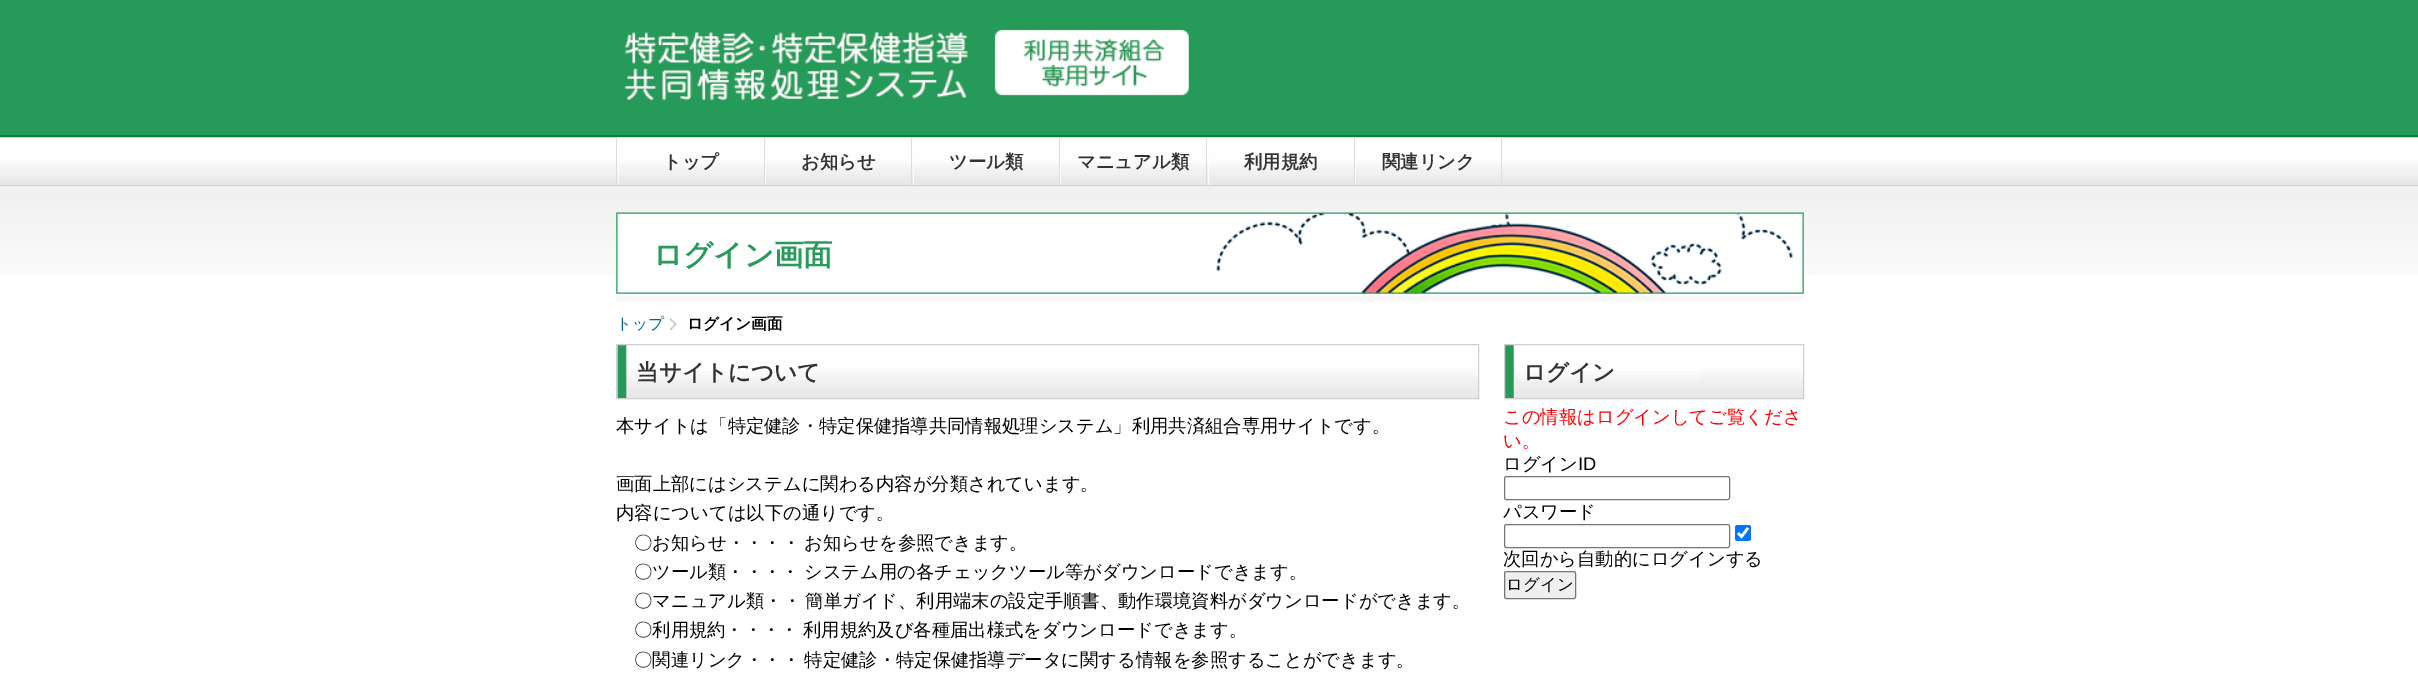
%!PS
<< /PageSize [2418 684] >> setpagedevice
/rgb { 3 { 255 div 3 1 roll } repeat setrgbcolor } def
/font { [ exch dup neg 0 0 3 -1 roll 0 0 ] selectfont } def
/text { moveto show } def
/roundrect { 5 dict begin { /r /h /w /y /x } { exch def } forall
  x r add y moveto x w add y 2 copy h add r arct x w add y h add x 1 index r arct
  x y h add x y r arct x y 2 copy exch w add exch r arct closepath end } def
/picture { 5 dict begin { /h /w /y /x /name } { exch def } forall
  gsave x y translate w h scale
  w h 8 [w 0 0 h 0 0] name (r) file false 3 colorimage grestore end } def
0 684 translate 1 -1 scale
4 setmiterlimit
255 255 255 rgb
0 0 2418 684 rectfill
(img_01.rgb) 0 137 2418 138 picture
(img_06.rgb) 0 0 2418 138 picture
(img_02.rgb) 0 137 2418 48 picture
208 208 208 rgb
0 185 2418 1 rectfill
221 221 221 rgb
616 138 1 47 rectfill
(img_03.rgb) 617 137 148 1 picture
764 138 1 47 rectfill
252 252 252 rgb
618 138 1 47 rectfill
(img_04.rgb) 765 137 148 1 picture
221 221 221 rgb
911 138 1 47 rectfill
252 252 252 rgb
765 138 1 47 rectfill
(img_05.rgb) 912 137 148 1 picture
221 221 221 rgb
1059 138 1 47 rectfill
252 252 252 rgb
913 138 1 47 rectfill
(img_04.rgb) 1060 137 148 1 picture
221 221 221 rgb
1206 138 1 47 rectfill
252 252 252 rgb
1060 138 1 47 rectfill
(img_05.rgb) 1207 137 148 1 picture
221 221 221 rgb
1354 138 1 47 rectfill
252 252 252 rgb
1208 138 1 47 rectfill
(img_04.rgb) 1355 137 148 1 picture
221 221 221 rgb
1501 138 1 47 rectfill
252 252 252 rgb
1355 138 1 47 rectfill
(img_07.rgb) 624 29 565 72 picture
(img_08.rgb) 616 212 1188 90 picture
(img_09.rgb) 670 318 7 12 picture
(img_10.rgb) 617 345 861 53 picture
208 208 208 rgb
616.5 344.5 862 54 rectstroke
(img_11.rgb) 1505 345 298 53 picture
1504.5 344.5 299 54 rectstroke
118 118 118 rgb
1504.5 476.5 225 23 2 roundrect stroke
1504.5 524.5 225 23 2 roundrect stroke
0 117 255 rgb
1735 525 16 16 2.5 roundrect fill
255 255 255 rgb
2.6 setlinewidth
1738 533 moveto 3.5 3.5 rlineto 6.5 -8.5 rlineto stroke
239 239 239 rgb
1504.5 571.5 71 27 2 roundrect gsave fill grestore
118 118 118 rgb
1 setlinewidth
stroke
/WenQuanYiZenHei-Bold 18.3 font
51 51 51 rgb
(トップ) 663 168 text
(お知らせ) 801 168 text
(ツール類) 949 168 text
(マニュアル類) 1077 168 text
(利用規約) 1244 168 text
(関連リンク) 1382 168 text
/WenQuanYiZenHei-Bold 29.5 font
39 155 89 rgb
(ログイン画面) 653 265 text
/WenQuanYiZenHei-Medium 15.75 font
0 102 153 rgb
(トップ) 616 329 text
/WenQuanYiZenHei-Bold 15.75 font
0 0 0 rgb
(ログイン画面) 687 329 text
/WenQuanYiZenHei-Bold 22.5 font
51 51 51 rgb
(当サイトについて) 636 380 text
/WenQuanYiZenHei-Medium 18.3 font
0 0 0 rgb
(本サイトは「特定健診・特定保健指導共同情報処理システム」利用共済組合専用サイトです。) 616 432 text
(画面上部にはシステムに関わる内容が分類されています。) 616 490 text
(内容については以下の通りです。) 616 519 text
634 549 moveto -1 0 32 (〇お知らせ・・・・ お知らせを参照できます。) widthshow
634 578 moveto -1 0 32 (〇ツール類・・・・ システム用の各チェックツール等がダウンロードできます。) widthshow
634 607 moveto -1 0 32 (〇マニュアル類・・ 簡単ガイド、利用端末の設定手順書、動作環境資料がダウンロードができます。) widthshow
634 636 moveto -1 0 32 (〇利用規約・・・・ 利用規約及び各種届出様式をダウンロードできます。) widthshow
634 666 moveto -1 0 32 (〇関連リンク・・・ 特定健診・特定保健指導データに関する情報を参照することができます。) widthshow
/WenQuanYiZenHei-Bold 22.5 font
51 51 51 rgb
(ログイン) 1523 380 text
/WenQuanYiZenHei-Medium 18.3 font
255 0 0 rgb
(この情報はログインしてご覧くださ) 1503 423 text
(い。) 1503 447 text
0 0 0 rgb
(ログイン) 1503 470 text
/LiberationSans-Regular 18.3 font
(ID) 1578 470 text
/WenQuanYiZenHei-Medium 18.3 font
(パスワード) 1503 518 text
(次回から自動的にログインする) 1503 565 text
/WenQuanYiZenHei-Medium 16.5 font
(ログイン) 1506 590 text
showpage
